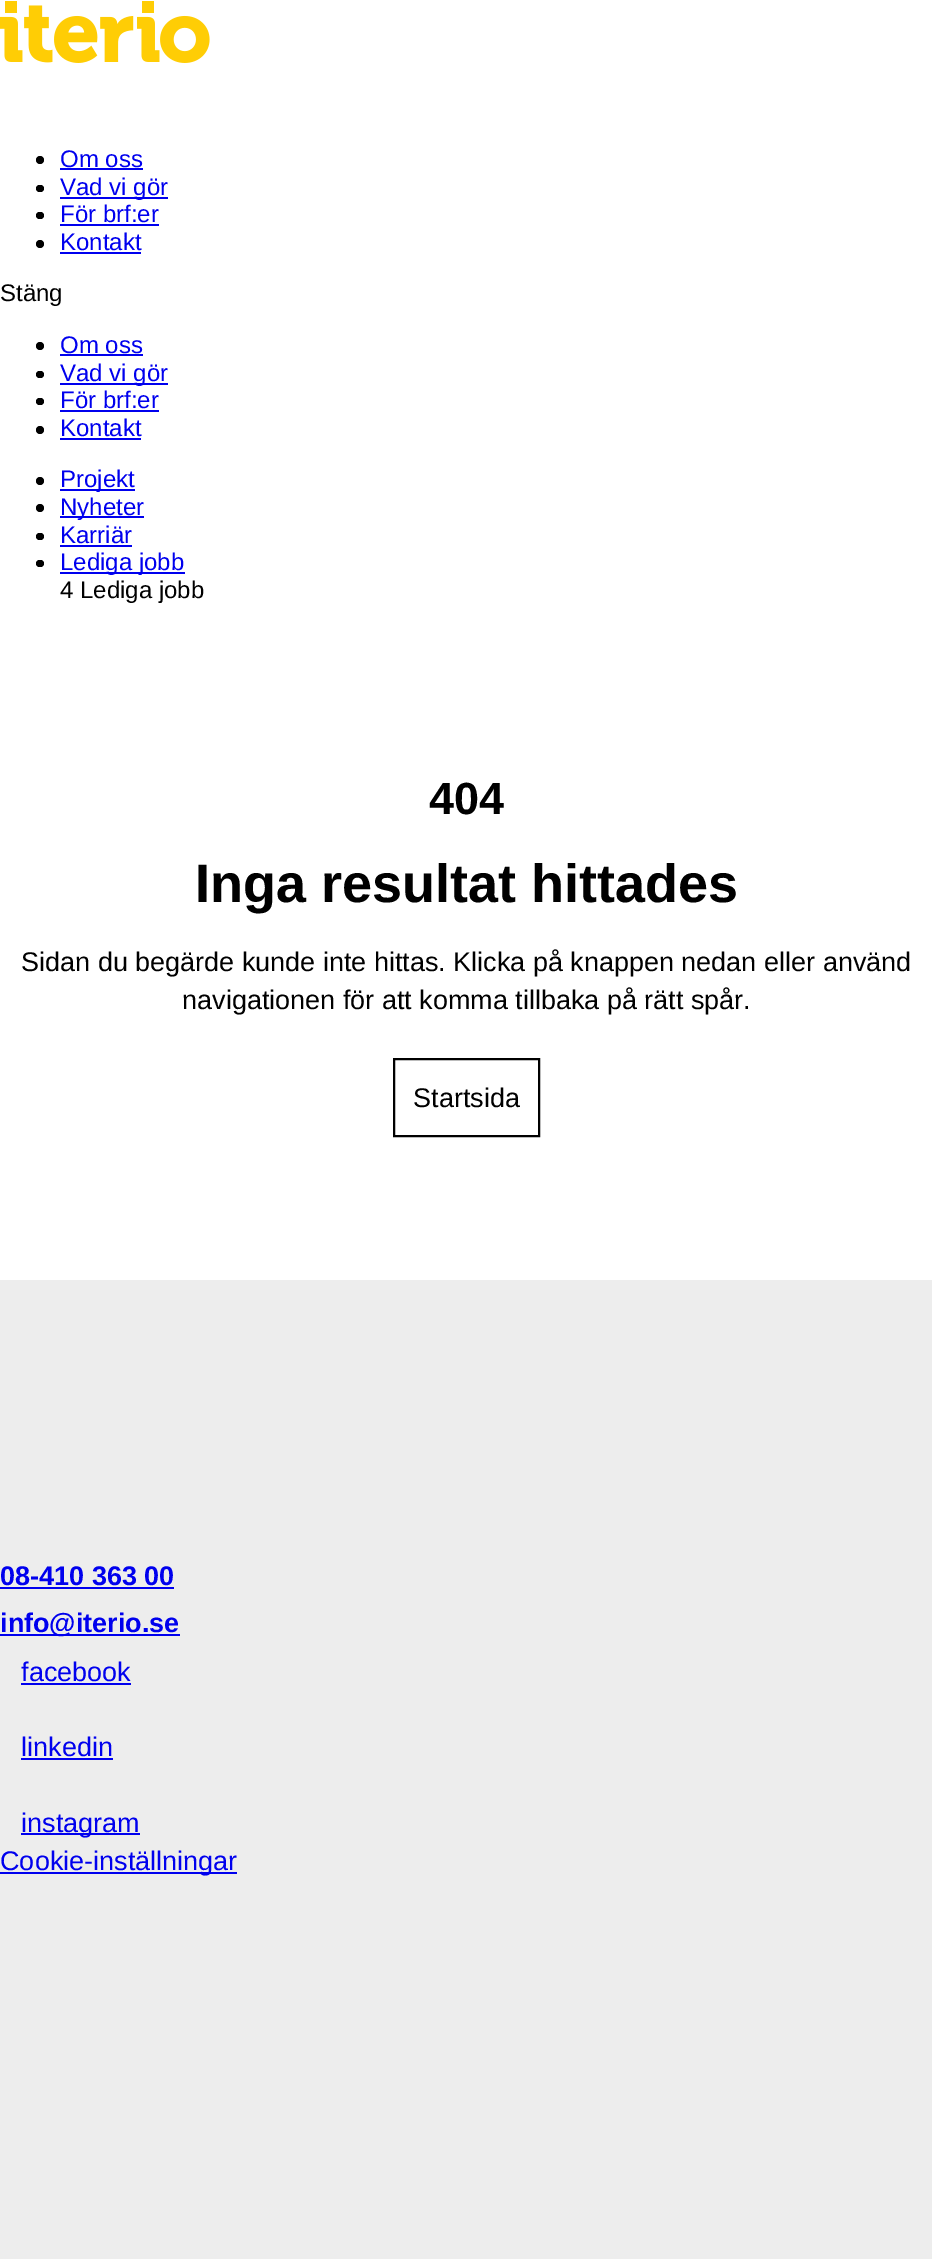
%!PS
<< /PageSize [932 2259] >> setpagedevice
/rgb { 3 { 255 div 3 1 roll } repeat setrgbcolor } def
/font { [ exch dup neg 0 0 3 -1 roll 0 0 ] selectfont } def
/text { moveto show } def
/circle { newpath 0 360 arc closepath } def
/roundrect { 5 dict begin { /r /h /w /y /x } { exch def } forall
  x r add y moveto x w add y 2 copy h add r arct x w add y h add x 1 index r arct
  x y h add x y r arct x y 2 copy exch w add exch r arct closepath end } def
/picture { 5 dict begin { /h /w /y /x /name } { exch def } forall
  gsave x y translate w h scale
  w h 8 [w 0 0 h 0 0] name (r) file false 3 colorimage grestore end } def
0 2259 translate 1 -1 scale
4 setmiterlimit
255 255 255 rgb
0 0 932 2259 rectfill
(img_01.rgb) 0 1 210 62 picture
0 0 0 rgb
40 160 4 circle fill
0 0 238 rgb
60 168 83 2 rectfill
0 0 0 rgb
36 185 8 7 3.5 roundrect fill
0 0 238 rgb
60 197 108 2 rectfill
0 0 0 rgb
36 212 8 7 3.5 roundrect fill
0 0 238 rgb
60 224 99 2 rectfill
0 0 0 rgb
40 244 4 circle fill
0 0 238 rgb
60 252 81 2 rectfill
0 0 0 rgb
40 346 4 circle fill
0 0 238 rgb
60 354 83 2 rectfill
0 0 0 rgb
36 371 8 7 3.5 roundrect fill
0 0 238 rgb
60 383 108 2 rectfill
0 0 0 rgb
36 398 8 7 3.5 roundrect fill
0 0 238 rgb
60 410 99 2 rectfill
0 0 0 rgb
40 430 4 circle fill
0 0 238 rgb
60 438 81 2 rectfill
0 0 0 rgb
40 481 4 circle fill
0 0 238 rgb
60 489 75 2 rectfill
0 0 0 rgb
40 508 4 circle fill
0 0 238 rgb
60 516 84 2 rectfill
0 0 0 rgb
36 533 8 7 3.5 roundrect fill
0 0 238 rgb
60 545 72 2 rectfill
0 0 0 rgb
36 560 8 7 3.5 roundrect fill
0 0 238 rgb
60 572 125 2 rectfill
0 0 0 rgb
2 setlinewidth
394 1059 145 77 rectstroke
237 237 237 rgb
0 1280 932 979 rectfill
0 0 238 rgb
0 1587 174 2 rectfill
0 1634 180 2 rectfill
21 1683 110 2 rectfill
21 1758 92 2 rectfill
21 1833 119 2 rectfill
0 1872 237 2 rectfill
/LiberationSans-Regular 24 font
(Om oss) 60 167 text
(Vad vi gör) 60 195 text
(För brf:er) 60 222 text
(Kontakt) 60 250 text
0 0 0 rgb
(Stäng) 0 301 text
0 0 238 rgb
(Om oss) 60 353 text
(Vad vi gör) 60 381 text
(För brf:er) 60 408 text
(Kontakt) 60 436 text
(Projekt) 60 487 text
(Nyheter) 60 515 text
(Karriär) 60 543 text
(Lediga jobb) 60 570 text
0 0 0 rgb
(4 Lediga jobb) 60 598 text
/LiberationSans-Bold 45 font
(404) 429 814 text
/LiberationSans-Bold 54 font
(Inga resultat hittades) 195 902 text
/LiberationSans-Regular 27 font
(Sidan du begärde kunde inte hittas. Klicka på knappen nedan eller använd) 21 971 text
(navigationen för att komma tillbaka på rätt spår.) 182 1009 text
(Startsida) 413 1107 text
/LiberationSans-Bold 27 font
0 0 238 rgb
(08-410 363 00) 0 1585 text
(info@iterio.se) 0 1632 text
/LiberationSans-Regular 27 font
(facebook) 21 1681 text
(linkedin) 21 1756 text
(instagram) 21 1832 text
(Cookie-inställningar) 0 1870 text
showpage
